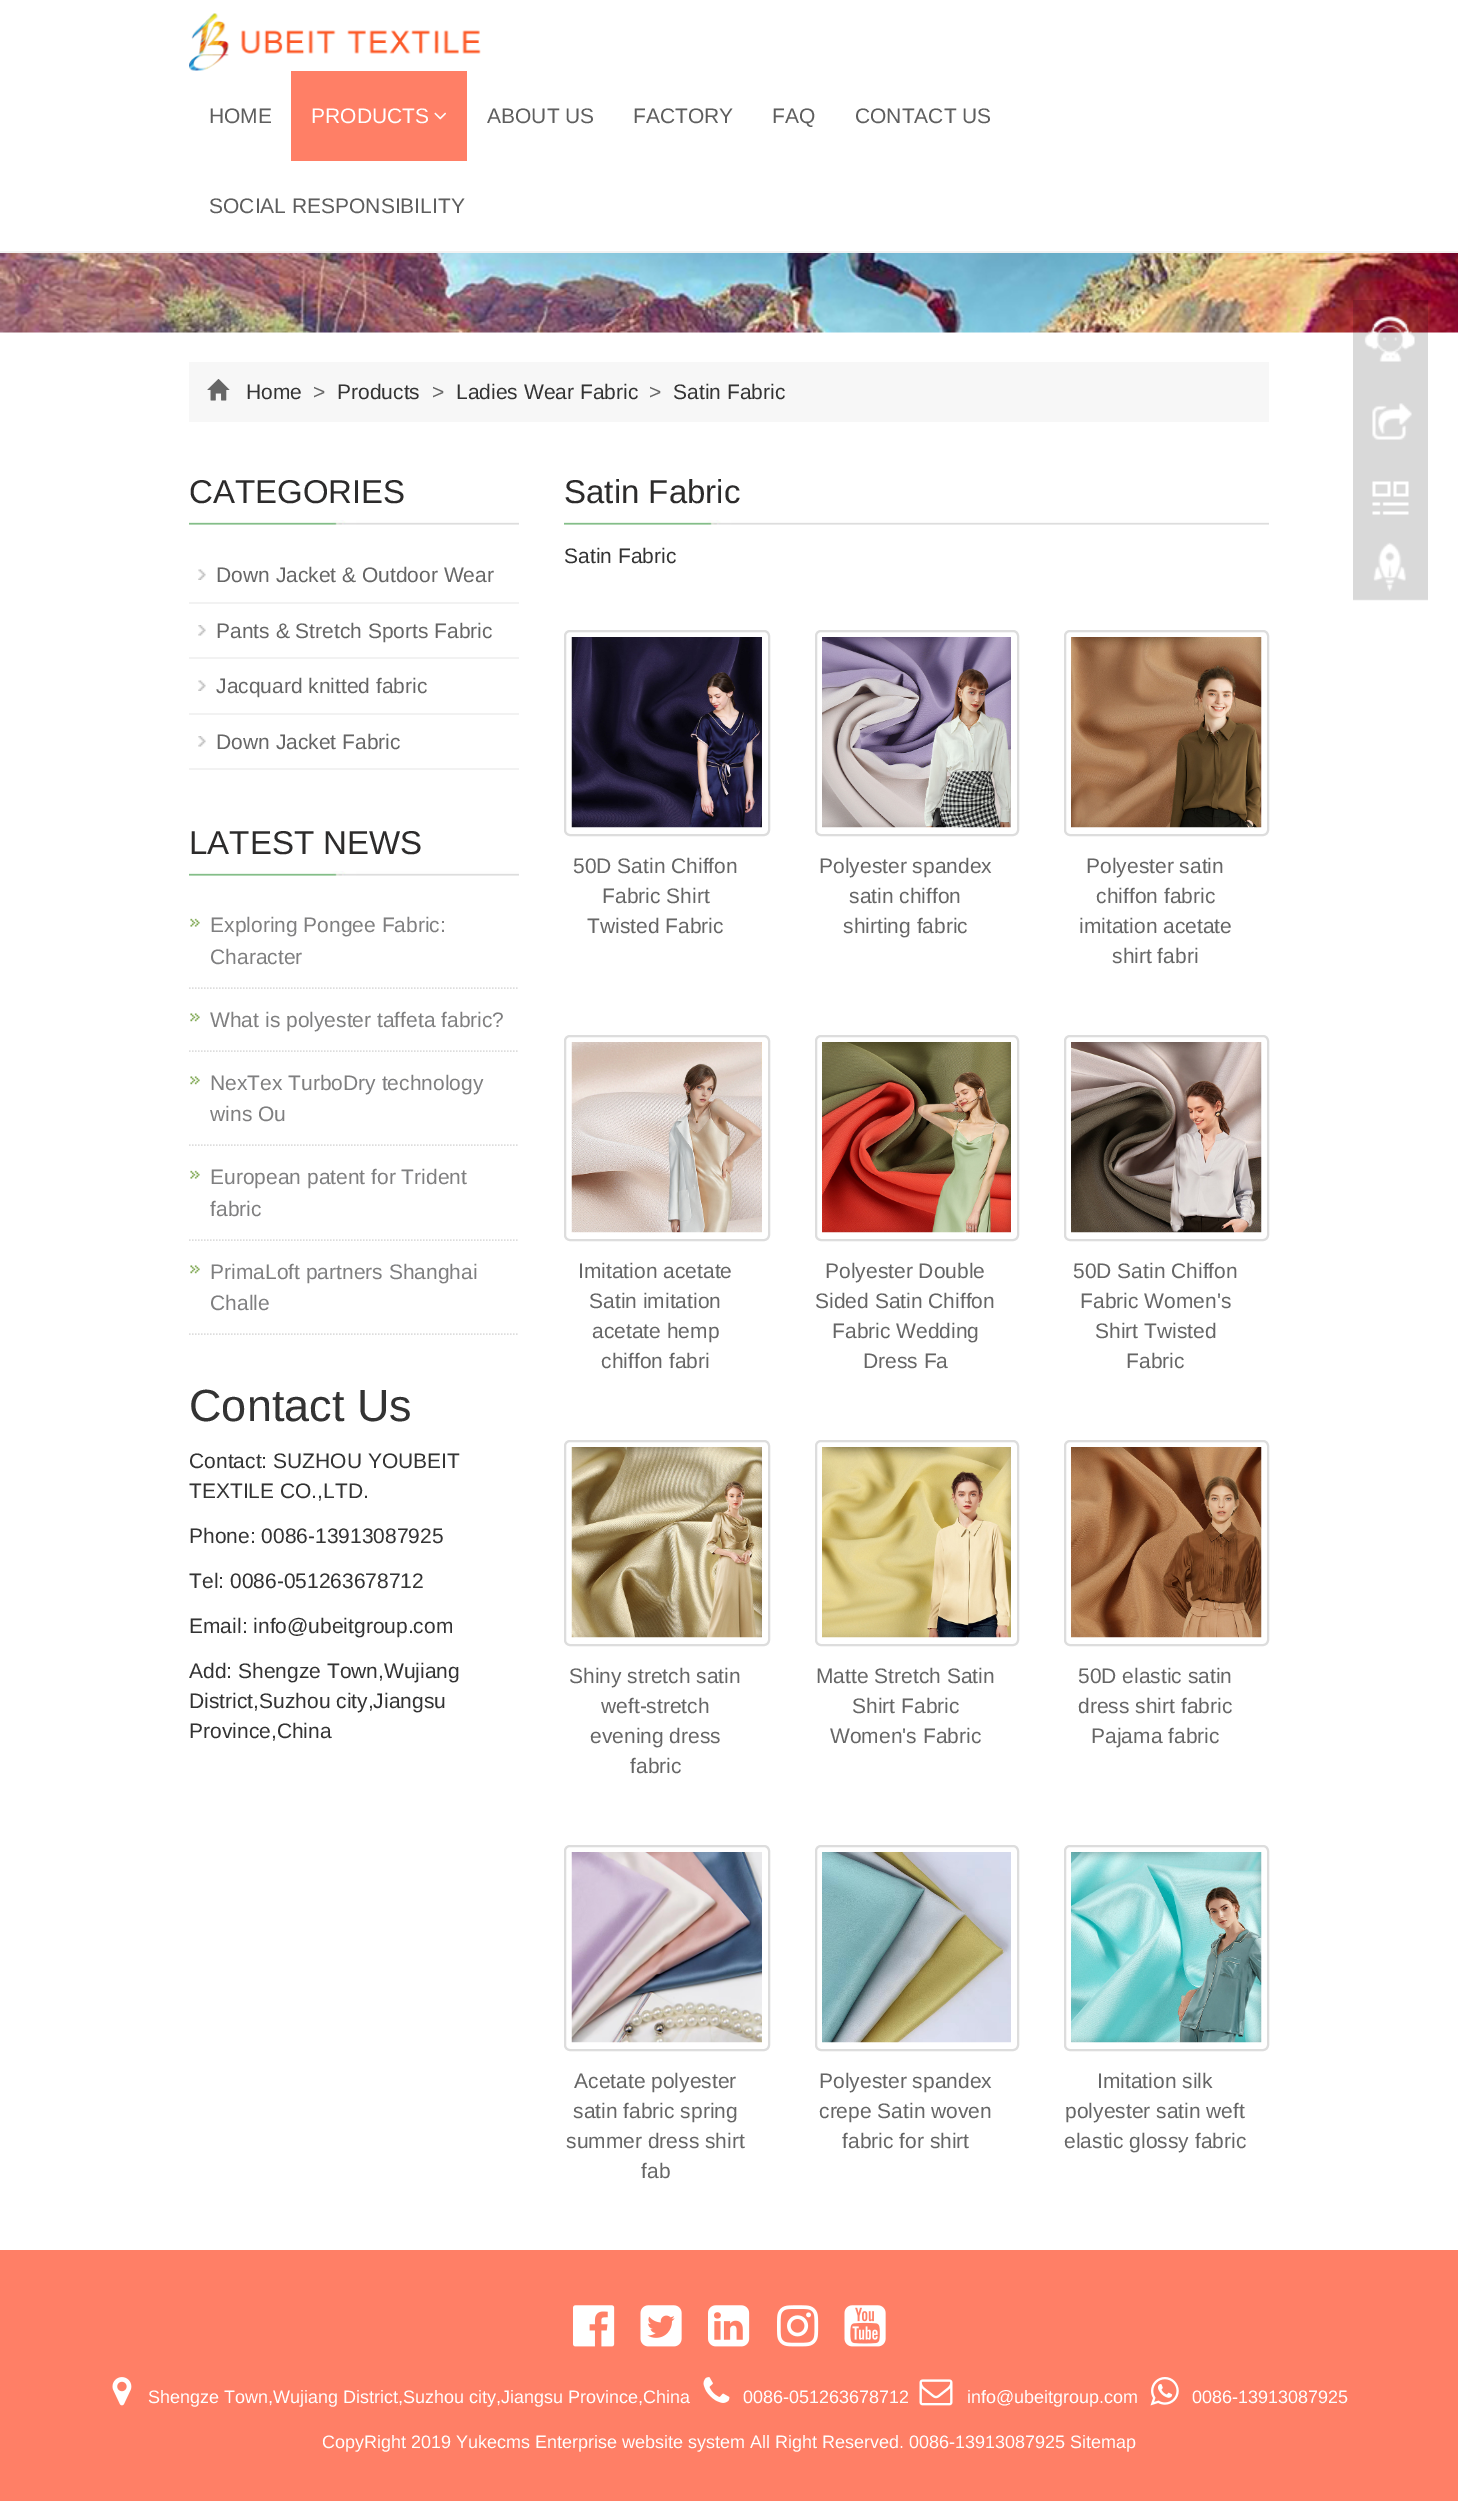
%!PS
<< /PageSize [1458 2501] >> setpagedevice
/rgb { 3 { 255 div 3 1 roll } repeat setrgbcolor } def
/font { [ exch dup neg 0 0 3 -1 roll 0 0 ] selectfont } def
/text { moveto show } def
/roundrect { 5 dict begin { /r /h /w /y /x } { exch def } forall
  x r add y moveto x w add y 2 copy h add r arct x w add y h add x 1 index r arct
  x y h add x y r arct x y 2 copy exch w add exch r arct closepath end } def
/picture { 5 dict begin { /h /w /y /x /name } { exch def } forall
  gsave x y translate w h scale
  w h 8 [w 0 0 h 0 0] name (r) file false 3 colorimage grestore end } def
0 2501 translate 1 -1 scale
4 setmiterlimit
255 255 255 rgb
0 0 1458 2501 rectfill
243 243 243 rgb
0 251 1458 2 rectfill
(img_01.rgb) 189 13 292 58 picture
255 127 102 rgb
291 71 176 90 rectfill
(img_02.rgb) 434 112 12 8 picture
(img_03.rgb) 0 253 1458 80 picture
247 247 247 rgb
189 362 1080 60 rectfill
(img_04.rgb) 207 379 23 22 picture
(img_05.rgb) 189 520 330 5 picture
(img_06.rgb) 198 569 8 11 picture
242 242 242 rgb
189 602 330 2 rectfill
(img_07.rgb) 198 625 8 11 picture
189 657 330 2 rectfill
(img_06.rgb) 198 680 8 11 picture
189 713 330 2 rectfill
(img_07.rgb) 198 736 8 11 picture
189 768 330 2 rectfill
(img_05.rgb) 189 871 330 5 picture
(img_08.rgb) 190 918 10 9 picture
221 221 221 rgb
1.5 setlinewidth
[1.5 1.5] 0 setdash
189 988 moveto 330 0 rlineto stroke
(img_09.rgb) 190 1013 10 9 picture
189 1051 moveto 330 0 rlineto stroke
(img_09.rgb) 190 1076 10 9 picture
189 1145 moveto 330 0 rlineto stroke
(img_08.rgb) 190 1170 10 9 picture
189 1240 moveto 330 0 rlineto stroke
(img_09.rgb) 190 1265 10 9 picture
189 1334 moveto 330 0 rlineto stroke
(img_10.rgb) 564 520 705 5 picture
2 setlinewidth
[] 0 setdash
565 631 204 204 5 roundrect stroke
(img_11.rgb) 571 637 191 191 picture
816 631 202 204 5 roundrect stroke
(img_12.rgb) 822 637 189 191 picture
1065 631 203 204 5 roundrect stroke
(img_13.rgb) 1071 637 191 191 picture
565 1036 204 204 5 roundrect stroke
(img_14.rgb) 571 1042 191 191 picture
816 1036 202 204 5 roundrect stroke
(img_15.rgb) 822 1042 189 191 picture
1065 1036 203 204 5 roundrect stroke
(img_16.rgb) 1071 1042 191 191 picture
565 1441 204 204 5 roundrect stroke
(img_17.rgb) 571 1447 191 191 picture
816 1441 202 204 5 roundrect stroke
(img_18.rgb) 822 1447 189 191 picture
1065 1441 203 204 5 roundrect stroke
(img_19.rgb) 1071 1447 191 191 picture
565 1846 204 204 5 roundrect stroke
(img_20.rgb) 571 1852 191 191 picture
816 1846 202 204 5 roundrect stroke
(img_21.rgb) 822 1852 189 191 picture
1065 1846 203 204 5 roundrect stroke
(img_22.rgb) 1071 1852 191 191 picture
(img_23.rgb) 1353 300 75 301 picture
255 127 102 rgb
0 2250 1458 251 rectfill
(img_24.rgb) 573 2305 42 42 picture
(img_25.rgb) 640 2305 42 42 picture
(img_26.rgb) 708 2305 42 42 picture
(img_27.rgb) 777 2305 42 42 picture
(img_28.rgb) 844 2305 42 42 picture
(img_29.rgb) 112 2377 20 29 picture
(img_30.rgb) 703 2377 27 26 picture
(img_31.rgb) 919 2379 34 27 picture
(img_32.rgb) 1150 2377 29 29 picture
/LiberationSans-Regular 21 font
94 94 94 rgb
(HOME) 209 123 text
255 255 255 rgb
(PRODUCTS) 311 123 text
94 94 94 rgb
(ABOUT US) 487 123 text
(FACTORY) 633 123 text
(FAQ) 772 123 text
(CONTACT US) 855 123 text
(SOCIAL RESPONSIBILITY) 209 213 text
51 51 51 rgb
(Home) 246 399 text
102 102 102 rgb
(>) 313 399 text
51 51 51 rgb
(Products) 337 399 text
102 102 102 rgb
(>) 432 399 text
51 51 51 rgb
(Ladies Wear Fabric) 456 399 text
102 102 102 rgb
(>) 649 399 text
51 51 51 rgb
(Satin Fabric) 673 399 text
/LiberationSans-Regular 33 font
44 43 43 rgb
(CATEGORIES) 189 503 text
/LiberationSans-Regular 21 font
102 102 102 rgb
(Down Jacket & Outdoor Wear) 216 582 text
(Pants & Stretch Sports Fabric) 216 638 text
(Jacquard knitted fabric) 216 693 text
(Down Jacket Fabric) 216 749 text
/LiberationSans-Regular 33 font
44 43 43 rgb
(LATEST NEWS) 189 854 text
/LiberationSans-Regular 21 font
127 127 128 rgb
(Exploring Pongee Fabric:) 210 932 text
(Character) 210 964 text
(What is polyester taffeta fabric?) 210 1027 text
(NexTex TurboDry technology) 210 1090 text
(wins Ou) 210 1121 text
(European patent for Trident) 210 1184 text
(fabric) 210 1216 text
(PrimaLoft partners Shanghai) 210 1279 text
(Challe) 210 1310 text
/LiberationSans-Regular 45 font
51 51 51 rgb
(Contact Us) 189 1421 text
/LiberationSans-Regular 21 font
(Contact: SUZHOU YOUBEIT) 189 1468 text
(TEXTILE CO.,LTD.) 189 1498 text
(Phone: 0086-13913087925) 189 1543 text
(Tel: 0086-051263678712) 189 1588 text
(Email: info@ubeitgroup.com) 189 1633 text
(Add: Shengze Town,Wujiang) 189 1678 text
(District,Suzhou city,Jiangsu) 189 1708 text
(Province,China) 189 1738 text
/LiberationSans-Regular 33 font
44 43 43 rgb
(Satin Fabric) 564 503 text
/LiberationSans-Regular 21 font
51 51 51 rgb
(Satin Fabric) 564 563 text
102 102 102 rgb
(50D Satin Chiffon) 573 873 text
(Fabric Shirt) 602 903 text
(Twisted Fabric) 587 933 text
(Polyester spandex) 819 873 text
(satin chiffon) 849 903 text
(shirting fabric) 843 933 text
(Polyester satin) 1086 873 text
(chiffon fabric) 1096 903 text
(imitation acetate) 1079 933 text
(shirt fabri) 1112 963 text
(Imitation acetate) 578 1278 text
(Satin imitation) 589 1308 text
(acetate hemp) 592 1338 text
(chiffon fabri) 601 1368 text
(Polyester Double) 825 1278 text
(Sided Satin Chiffon) 815 1308 text
(Fabric Wedding) 832 1338 text
(Dress Fa) 863 1368 text
(50D Satin Chiffon) 1073 1278 text
(Fabric Women's) 1080 1308 text
(Shirt Twisted) 1095 1338 text
(Fabric) 1126 1368 text
(Shiny stretch satin) 569 1683 text
(weft-stretch) 601 1713 text
(evening dress) 590 1743 text
(fabric) 630 1773 text
(Matte Stretch Satin) 816 1683 text
(Shirt Fabric) 852 1713 text
(Women's Fabric) 830 1743 text
(50D elastic satin) 1078 1683 text
(dress shirt fabric) 1078 1713 text
(Pajama fabric) 1091 1743 text
(Acetate polyester) 574 2088 text
(satin fabric spring) 573 2118 text
(summer dress shirt) 566 2148 text
(fab) 641 2178 text
(Polyester spandex) 819 2088 text
(crepe Satin woven) 819 2118 text
(fabric for shirt) 842 2148 text
(Imitation silk) 1097 2088 text
(polyester satin weft) 1065 2118 text
(elastic glossy fabric) 1064 2148 text
/LiberationSans-Regular 18 font
255 255 255 rgb
(Shengze Town,Wujiang District,Suzhou city,Jiangsu Province,China) 148 2403 text
(0086-051263678712) 743 2403 text
(info@ubeitgroup.com) 967 2403 text
(0086-13913087925) 1192 2403 text
(CopyRight 2019 Yukecms Enterprise website system All Right Reserved. 0086-13913087925 Sitemap) 322 2448 text
showpage
